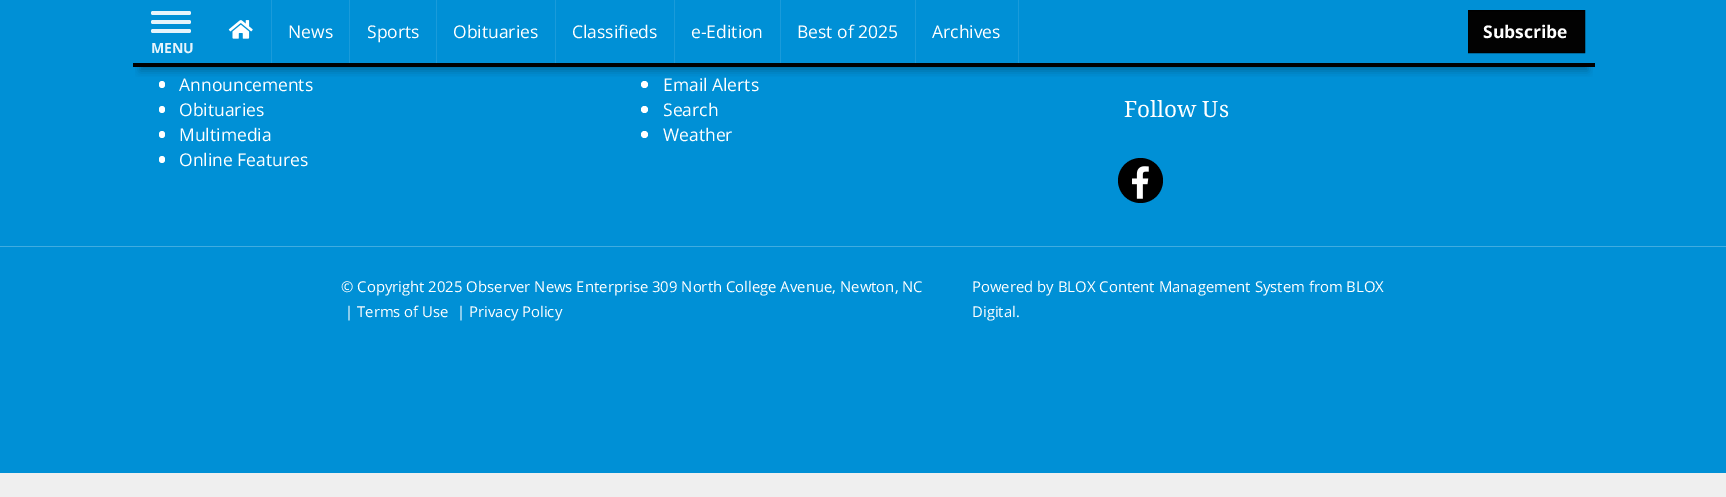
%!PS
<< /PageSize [1726 497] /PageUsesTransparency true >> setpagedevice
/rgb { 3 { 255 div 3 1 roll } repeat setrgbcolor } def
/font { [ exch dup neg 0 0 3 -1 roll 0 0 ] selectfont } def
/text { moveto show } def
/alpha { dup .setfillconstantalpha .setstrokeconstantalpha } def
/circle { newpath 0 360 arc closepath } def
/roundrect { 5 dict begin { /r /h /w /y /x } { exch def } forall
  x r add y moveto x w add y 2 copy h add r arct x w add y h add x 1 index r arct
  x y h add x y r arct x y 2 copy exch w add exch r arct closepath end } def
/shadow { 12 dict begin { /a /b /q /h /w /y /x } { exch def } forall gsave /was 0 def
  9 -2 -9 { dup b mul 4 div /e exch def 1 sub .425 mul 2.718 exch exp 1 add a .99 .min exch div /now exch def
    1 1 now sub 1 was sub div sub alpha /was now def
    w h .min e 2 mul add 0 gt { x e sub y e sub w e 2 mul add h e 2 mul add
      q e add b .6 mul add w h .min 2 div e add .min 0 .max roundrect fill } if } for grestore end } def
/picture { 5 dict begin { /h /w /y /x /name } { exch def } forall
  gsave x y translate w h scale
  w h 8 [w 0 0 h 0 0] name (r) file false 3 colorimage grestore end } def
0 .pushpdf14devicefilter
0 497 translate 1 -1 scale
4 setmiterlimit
239 239 239 rgb
0 0 1726 497 rectfill
0 144 214 rgb
0 0 1726 473 rectfill
255 255 255 rgb
159 81 6 7 3 roundrect fill
644.5 84.5 3.5 circle fill
gsave
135 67 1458 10 rectclip
0 0 0 rgb
140 20 1448 51 0 4 0.25 shadow
grestore
0 0 0 rgb
133 63 1462 4 rectfill
26 155 218 rgb
271 0 1 63 rectfill
(img_01.rgb) 228 20 25 19 picture
349 0 1 63 rectfill
436 0 1 63 rectfill
555 0 1 63 rectfill
674 0 1 63 rectfill
780 0 1 63 rectfill
915 0 1 63 rectfill
1018 0 1 63 rectfill
2 2 2 rgb
1468.5 10.5 moveto 116 0 rlineto 0 42 rlineto -116 0 rlineto closepath gsave fill grestore
0 0 0 rgb
stroke
230 244 251 rgb
151 11 40 4 2 roundrect fill
151 20 40 4 2 roundrect fill
151 29 40 4 2 roundrect fill
255 255 255 rgb
159 106 6 7 3 roundrect fill
159 131 6 7 3 roundrect fill
159 156 6 7 3 roundrect fill
644.5 109.5 3.5 circle fill
644.5 134.5 3.5 circle fill
0 0 0 rgb
1140.5 180.5 22.5 circle fill
(img_02.rgb) 1132 166 17 33 picture
64 172 224 rgb
0 246 1726 1 rectfill
/OpenSans-Regular 17.5 font
255 255 255 rgb
(News) 288 38 text
(Sports) 367 38 text
(Obituaries) 453 38 text
(Classifieds) 572 38 text
(e-Edition) 691 38 text
(Best of 2025) 797 38 text
(Archives) 932 38 text
/OpenSans-Bold 17.5 font
(Subscribe) 1483 38 text
/OpenSans-Bold 14 font
230 244 251 rgb
(MENU) 151 53 text
/OpenSans-Regular 17.5 font
255 255 255 rgb
(Announcements) 179 91 text
(Obituaries) 179 116 text
(Multimedia) 179 141 text
(Online Features) 179 166 text
(Email Alerts) 663 91 text
(Search) 663 116 text
(Weather) 663 141 text
/DroidSerif-Regular 22.5 font
(Follow Us) 1124 117 text
/OpenSans-Regular 14.9 font
(© Copyright 2025 Observer News Enterprise 309 North College Avenue, Newton, NC) 341 292 text
(| Terms of Use) 345 317 text
(| Privacy Policy) 457 317 text
(Powered by BLOX Content Management System from BLOX) 972 292 text
(Digital.) 972 317 text
.poppdf14devicefilter showpage
